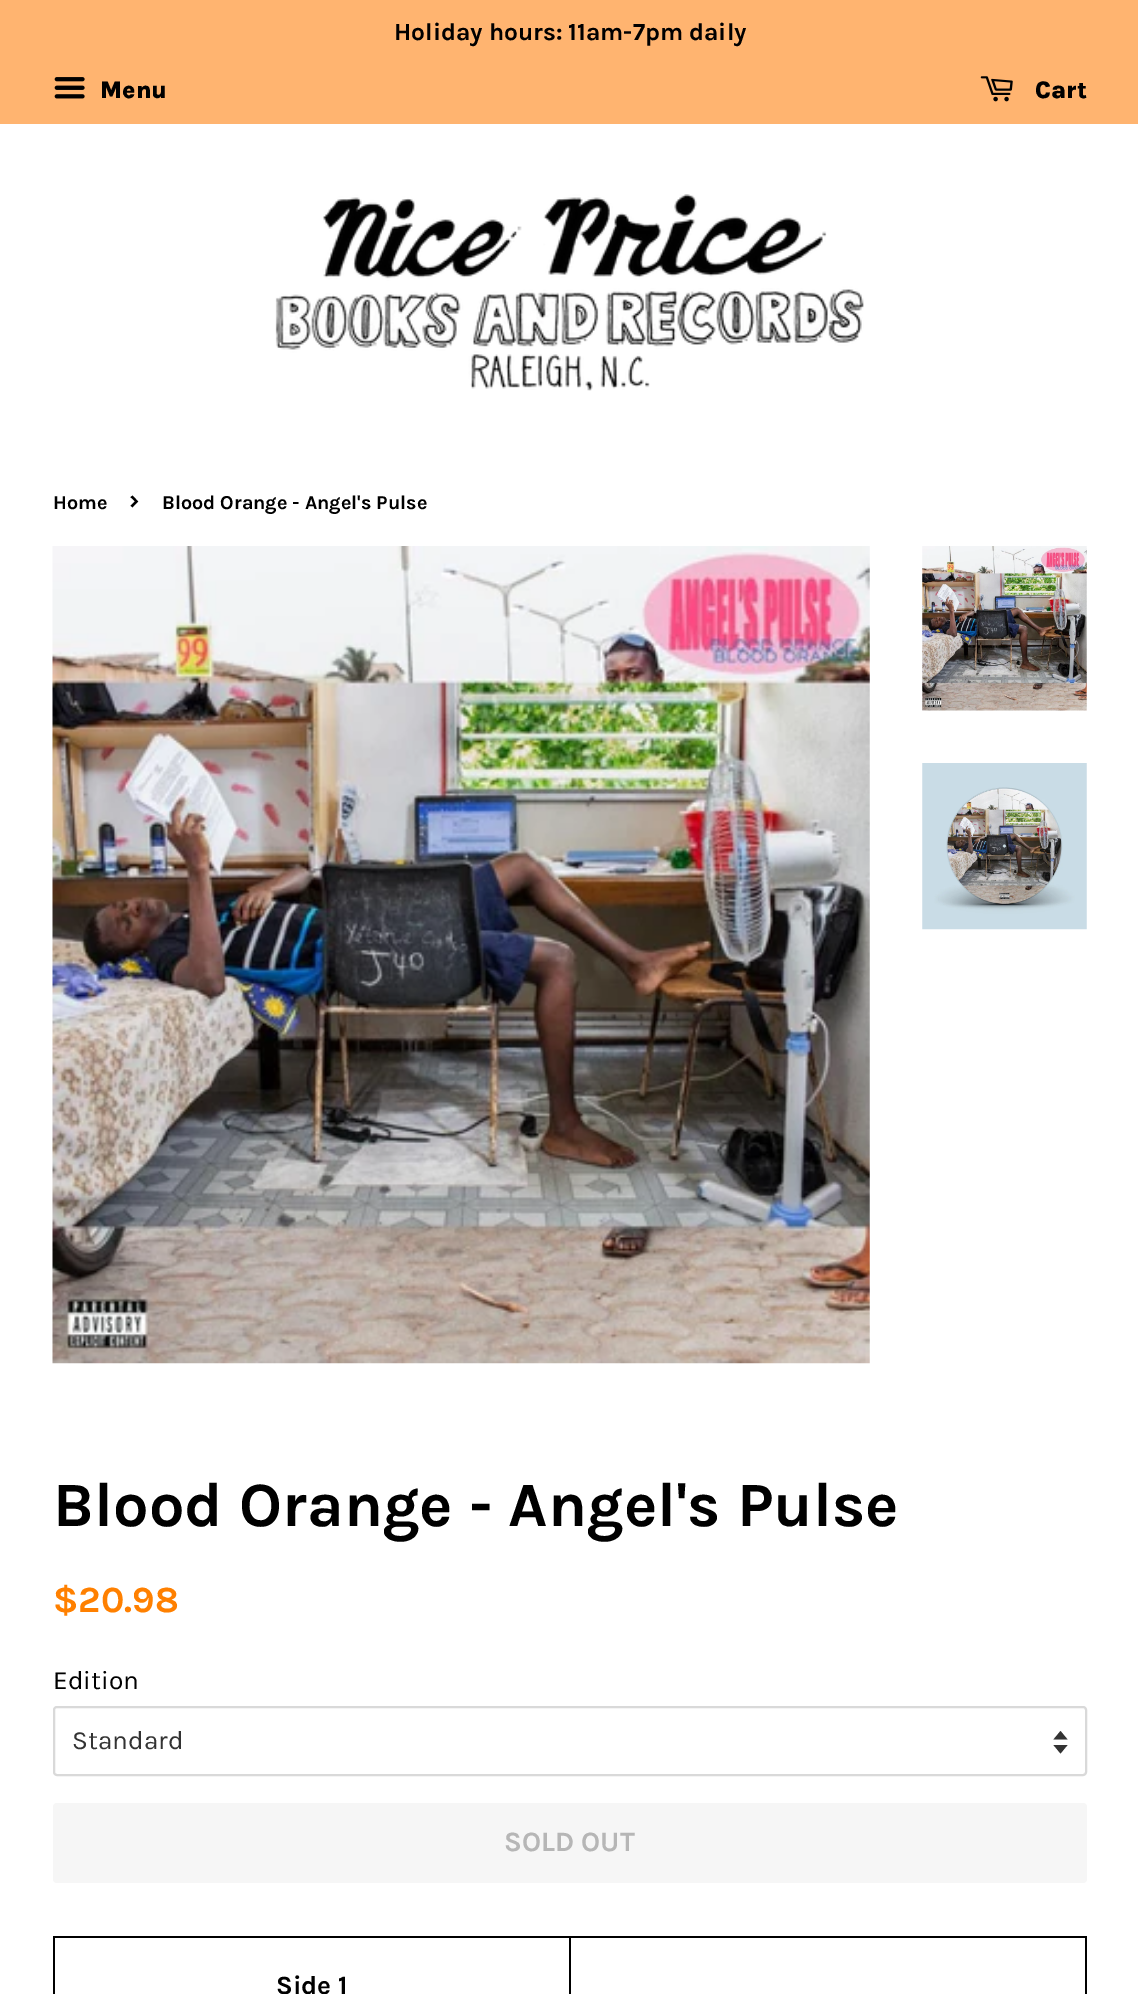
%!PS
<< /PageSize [1138 1994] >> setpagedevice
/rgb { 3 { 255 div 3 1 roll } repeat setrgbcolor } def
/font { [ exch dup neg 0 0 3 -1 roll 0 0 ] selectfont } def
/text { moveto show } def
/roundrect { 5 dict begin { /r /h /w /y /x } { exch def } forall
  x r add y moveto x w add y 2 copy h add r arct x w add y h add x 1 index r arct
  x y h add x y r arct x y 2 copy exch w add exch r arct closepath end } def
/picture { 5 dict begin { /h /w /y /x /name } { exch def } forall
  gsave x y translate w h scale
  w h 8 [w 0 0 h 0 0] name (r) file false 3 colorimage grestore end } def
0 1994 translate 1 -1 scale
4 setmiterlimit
255 255 255 rgb
0 0 1138 1994 rectfill
255 180 112 rgb
0 0 1138 124 rectfill
(img_01.rgb) 54 77 31 22 picture
(img_02.rgb) 980 76 33 26 picture
(img_03.rgb) 275 194 589 197 picture
(img_04.rgb) 52 546 818 818 picture
(img_05.rgb) 922 546 165 165 picture
(img_06.rgb) 922 763 165 167 picture
51 51 51 rgb
1053.5 1745 moveto 7 8.5 rlineto 7 -8.5 rlineto closepath 1060.5 1731 moveto -7 8.5 rlineto 14 0 rlineto closepath fill
217 217 217 rgb
2 setlinewidth
54 1707 1032 68 3 roundrect stroke
246 246 246 rgb
53 1803 1034 80 4 roundrect fill
0 0 0 rgb
569 1936 518 2 rectfill
569 1936 2 58 rectfill
53 1936 518 2 rectfill
53 1936 2 58 rectfill
1085 1936 2 58 rectfill
/Karla-Bold 24.5 font
(Holiday hours: 11am-7pm daily) 394 40 text
/Karla-ExtraBold 24.5 font
(Menu) 100 98 text
(Cart) 1035 98 text
/Karla-Bold 19.75 font
(Home) 53 509 text
/Karla-Bold 28 font
(›) 129 509 text
/Karla-Bold 19.75 font
(Blood Orange - Angel's Pulse) 162 509 text
/Karla-Bold 63 font
(Blood Orange - Angel's Pulse) 53 1526 text
/Karla-Bold 37 font
255 128 0 rgb
($20.98) 53 1612 text
/Karla-Regular 26.25 font
0 0 0 rgb
(Edition) 53 1689 text
51 51 51 rgb
(Standard) 72 1749 text
/Karla-Bold 28 font
182 182 182 rgb
(SOLD OUT) 504 1851 text
/Karla-Bold 26.25 font
0 0 0 rgb
(Side 1) 276 1994 text
showpage
